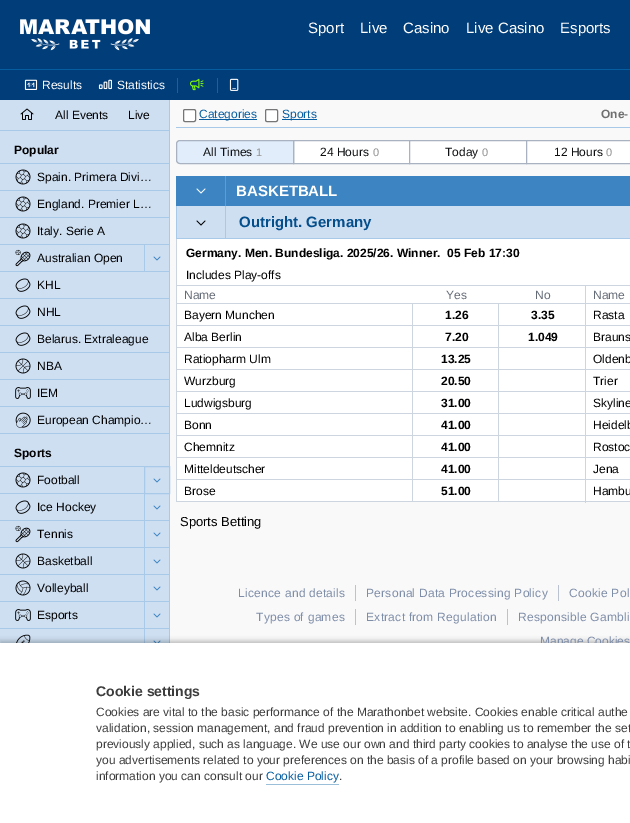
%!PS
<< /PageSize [630 823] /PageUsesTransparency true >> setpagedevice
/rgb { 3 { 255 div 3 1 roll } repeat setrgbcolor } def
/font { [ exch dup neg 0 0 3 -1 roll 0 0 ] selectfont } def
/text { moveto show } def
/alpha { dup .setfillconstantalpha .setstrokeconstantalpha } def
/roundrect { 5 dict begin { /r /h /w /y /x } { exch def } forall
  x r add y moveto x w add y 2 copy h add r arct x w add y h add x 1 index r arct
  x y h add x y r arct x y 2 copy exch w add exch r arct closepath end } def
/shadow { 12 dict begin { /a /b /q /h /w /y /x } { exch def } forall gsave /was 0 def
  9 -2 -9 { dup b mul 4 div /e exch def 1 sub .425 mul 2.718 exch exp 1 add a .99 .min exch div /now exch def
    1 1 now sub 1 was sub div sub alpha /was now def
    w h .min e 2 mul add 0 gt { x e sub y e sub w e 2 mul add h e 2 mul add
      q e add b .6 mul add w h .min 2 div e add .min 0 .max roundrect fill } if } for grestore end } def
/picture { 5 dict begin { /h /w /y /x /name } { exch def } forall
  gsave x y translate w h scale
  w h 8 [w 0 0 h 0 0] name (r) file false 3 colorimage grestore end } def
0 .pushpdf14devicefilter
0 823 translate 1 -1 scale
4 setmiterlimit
249 249 249 rgb
0 0 630 823 rectfill
1 61 121 rgb
0 0 630 100 rectfill
(img_01.rgb) 20 19 130 32 picture
6 93 160 rgb
0 69 630 1 rectfill
(img_02.rgb) 24 79 14 11 picture
(img_03.rgb) 98 79 14 11 picture
42 92 142 rgb
177 78 1 15 rectfill
(img_04.rgb) 189 78 15 13 picture
217 78 1 15 rectfill
(img_05.rgb) 229 78 10 13 picture
206 223 242 rgb
0 100 169 543 rectfill
168 202 232 rgb
169 100 1 145 rectfill
0 130 170 1 rectfill
(img_06.rgb) 20 108 14 12 picture
0 163 169 1 rectfill
0 190 169 1 rectfill
(img_07.rgb) 15 169 16 16 picture
0 217 169 1 rectfill
(img_07.rgb) 15 196 16 16 picture
0 244 169 1 rectfill
(img_07.rgb) 15 223 16 16 picture
169 245 1 221 rectfill
0 271 170 1 rectfill
(img_08.rgb) 15 249 16 18 picture
144 245 1 27 rectfill
(img_09.rgb) 153 256 8 5 picture
0 298 169 1 rectfill
(img_10.rgb) 15 278 16 14 picture
0 325 169 1 rectfill
(img_10.rgb) 15 305 16 14 picture
0 352 169 1 rectfill
(img_10.rgb) 15 332 16 14 picture
0 379 169 1 rectfill
(img_11.rgb) 15 358 16 16 picture
0 406 169 1 rectfill
(img_12.rgb) 15 387 16 12 picture
0 433 169 1 rectfill
(img_13.rgb) 15 412 16 16 picture
0 466 144 1 rectfill
0 493 144 1 rectfill
(img_07.rgb) 15 472 16 16 picture
144.5 466.5 25 27 rectstroke
(img_09.rgb) 153 478 8 5 picture
0 520 144 1 rectfill
(img_10.rgb) 15 500 16 14 picture
169 494 1 149 rectfill
144 520 26 1 rectfill
144 494 1 27 rectfill
(img_09.rgb) 153 505 8 5 picture
0 547 144 1 rectfill
(img_08.rgb) 15 525 16 18 picture
144 547 26 1 rectfill
144 521 1 27 rectfill
(img_09.rgb) 153 532 8 5 picture
0 574 144 1 rectfill
(img_11.rgb) 15 553 16 16 picture
144 574 26 1 rectfill
144 548 1 27 rectfill
(img_09.rgb) 153 559 8 5 picture
0 601 144 1 rectfill
(img_14.rgb) 15 580 16 16 picture
144 601 26 1 rectfill
144 575 1 27 rectfill
(img_09.rgb) 153 586 8 5 picture
0 628 144 1 rectfill
(img_12.rgb) 15 609 16 12 picture
144 628 26 1 rectfill
144 602 1 41 rectfill
(img_09.rgb) 153 613 8 5 picture
(img_15.rgb) 16 634 15 9 picture
(img_16.rgb) 153 640 8 3 picture
255 255 255 rgb
183.5 109.5 12 12 1.5 roundrect gsave fill grestore
118 118 118 rgb
stroke
6 93 160 rgb
199 119 58 1 rectfill
255 255 255 rgb
265.5 109.5 12 12 1.5 roundrect gsave fill grestore
118 118 118 rgb
stroke
6 93 160 rgb
282 119 35 1 rectfill
168 202 232 rgb
176 127 454 1 rectfill
255 255 255 rgb
293.5 140.5 moveto 116 0 rlineto 0 23 rlineto -116 0 rlineto closepath gsave fill grestore
168 178 192 rgb
stroke
225 237 250 rgb
180 140.5 moveto 113.5 0 rlineto 0 23 rlineto -113.5 0 rlineto -2 0 -3.5 -1.5 -3.5 -3.5 rcurveto 0 -16 rlineto 0 -2 1.5 -3.5 3.5 -3.5 rcurveto closepath gsave fill grestore
168 178 192 rgb
stroke
255 255 255 rgb
409.5 140.5 moveto 117 0 rlineto 0 23 rlineto -117 0 rlineto closepath gsave fill grestore
168 178 192 rgb
stroke
255 255 255 rgb
526.5 140.5 moveto 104 0 rlineto 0 23 rlineto -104 0 rlineto closepath gsave fill grestore
168 178 192 rgb
stroke
61 133 194 rgb
176 176 454 30 rectfill
94 157 212 rgb
225 176 1 30 rectfill
(img_17.rgb) 196 188 10 6 picture
206 223 242 rgb
177 206 453 32 rectfill
168 202 232 rgb
225 206 1 33 rectfill
176 238 454 1 rectfill
176 206 1 33 rectfill
(img_18.rgb) 196 220 10 6 picture
255 255 255 rgb
177 239 453 262 rectfill
205 213 225 rgb
176 239 1 263 rectfill
498 285 132 1 rectfill
498 303 132 1 rectfill
498 325 132 1 rectfill
498 347 132 1 rectfill
498 369 132 1 rectfill
498 391 132 1 rectfill
498 413 132 1 rectfill
498 435 132 1 rectfill
498 457 132 1 rectfill
498 479 132 1 rectfill
498 501 132 1 rectfill
498 479 1 23 rectfill
412 479 87 1 rectfill
498 457 1 23 rectfill
412 457 87 1 rectfill
498 435 1 23 rectfill
412 435 87 1 rectfill
498 413 1 23 rectfill
412 413 87 1 rectfill
498 391 1 23 rectfill
412 391 87 1 rectfill
498 369 1 23 rectfill
412 369 87 1 rectfill
498 347 1 23 rectfill
412 347 87 1 rectfill
498 325 1 23 rectfill
412 325 87 1 rectfill
498 303 1 23 rectfill
255 255 255 rgb
498 285 1 19 rectfill
205 213 225 rgb
412 285 87 1 rectfill
412 501 87 1 rectfill
412 479 1 23 rectfill
177 479 236 1 rectfill
412 457 1 23 rectfill
177 457 236 1 rectfill
412 435 1 23 rectfill
177 435 236 1 rectfill
412 413 1 23 rectfill
177 413 236 1 rectfill
412 391 1 23 rectfill
177 391 236 1 rectfill
412 369 1 23 rectfill
177 369 236 1 rectfill
412 347 1 23 rectfill
177 347 236 1 rectfill
412 325 1 23 rectfill
177 325 236 1 rectfill
412 303 1 23 rectfill
412 303 87 1 rectfill
255 255 255 rgb
412 285 1 19 rectfill
205 213 225 rgb
177 285 236 1 rectfill
177 303 236 1 rectfill
177 501 236 1 rectfill
585 285 1 218 rectfill
187 195 209 rgb
355 585 1 16 rectfill
558 585 1 16 rectfill
355 609 1 16 rectfill
507 609 1 16 rectfill
0 0 0 rgb
0 641 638 180 0 2.5 0.25 shadow
/LiberationSans-Regular 15 font
255 255 255 rgb
(Sport) 308 33 text
(Live) 360 33 text
(Casino) 403 33 text
(Live Casino) 466 33 text
(Esports) 560 33 text
/LiberationSans-Regular 12 font
(Results) 42 89 text
(Statistics) 117 89 text
0 0 0 rgb
(All Events) 55 119 text
(Live) 128 119 text
/LiberationSans-Bold 12 font
(Popular) 14 154 text
/LiberationSans-Regular 12 font
(Spain. Primera Divi…) 37 181 text
(England. Premier L…) 37 208 text
(Italy. Serie A) 37 235 text
(Australian Open) 37 262 text
(KHL) 37 289 text
(NHL) 37 316 text
(Belarus. Extraleague) 37 343 text
(NBA) 37 370 text
(IEM) 37 397 text
(European Champio…) 37 424 text
/LiberationSans-Bold 12 font
(Sports) 14 457 text
/LiberationSans-Regular 12 font
(Football) 37 484 text
(Ice Hockey) 37 511 text
(Tennis) 37 538 text
(Basketball) 37 565 text
(Volleyball) 37 592 text
(Esports) 37 619 text
6 93 160 rgb
(Categories) 199 118 text
(Sports) 282 118 text
/LiberationSans-Bold 12 font
112 112 112 rgb
(One-) 601 118 text
/LiberationSans-Regular 12 font
15 16 18 rgb
(All Times) 203 156 text
/LiberationSans-Regular 11 font
145 145 145 rgb
(1) 256 156 text
/LiberationSans-Regular 12 font
15 16 18 rgb
(24 Hours) 320 156 text
/LiberationSans-Regular 11 font
145 145 145 rgb
(0) 373 156 text
/LiberationSans-Regular 12 font
15 16 18 rgb
(Today) 445 156 text
/LiberationSans-Regular 11 font
145 145 145 rgb
(0) 482 156 text
/LiberationSans-Regular 12 font
15 16 18 rgb
(12 Hours) 554 156 text
/LiberationSans-Regular 11 font
145 145 145 rgb
(0) 606 156 text
/LiberationSans-Bold 15 font
255 255 255 rgb
(BASKETBALL) 236 196 text
4 78 139 rgb
(Outright. Germany) 239 227 text
/LiberationSans-Bold 12 font
0 0 0 rgb
(Germany. Men. Bundesliga. 2025/26. Winner.  05 Feb 17:30) 186 257 text
/LiberationSans-Regular 12 font
(Includes Play-offs) 186 279 text
101 108 119 rgb
(Name) 184 299 text
(Yes) 446 299 text
(No) 535 299 text
0 0 0 rgb
(Bayern Munchen) 184 319 text
/LiberationSans-Bold 12 font
(1.26) 445 319 text
(3.35) 531 319 text
/LiberationSans-Regular 12 font
(Alba Berlin) 184 341 text
/LiberationSans-Bold 12 font
(7.20) 445 341 text
(1.049) 528 341 text
/LiberationSans-Regular 12 font
(Ratiopharm Ulm) 184 363 text
/LiberationSans-Bold 12 font
(13.25) 441 363 text
/LiberationSans-Regular 12 font
(Wurzburg) 184 385 text
/LiberationSans-Bold 12 font
(20.50) 441 385 text
/LiberationSans-Regular 12 font
(Ludwigsburg) 184 407 text
/LiberationSans-Bold 12 font
(31.00) 441 407 text
/LiberationSans-Regular 12 font
(Bonn) 184 429 text
/LiberationSans-Bold 12 font
(41.00) 441 429 text
/LiberationSans-Regular 12 font
(Chemnitz) 184 451 text
/LiberationSans-Bold 12 font
(41.00) 441 451 text
/LiberationSans-Regular 12 font
(Mitteldeutscher) 184 473 text
/LiberationSans-Bold 12 font
(41.00) 441 473 text
/LiberationSans-Regular 12 font
(Brose) 184 495 text
/LiberationSans-Bold 12 font
(51.00) 441 495 text
/LiberationSans-Regular 12 font
101 108 119 rgb
(Name) 593 299 text
0 0 0 rgb
(Rasta) 593 319 text
(Brauns) 593 341 text
(Oldenb) 593 363 text
(Trier) 593 385 text
(Skyline) 593 407 text
(Heidelb) 593 429 text
(Rostoc) 593 451 text
(Jena) 593 473 text
(Hambu) 593 495 text
/LiberationSans-Regular 13 font
(Sports Betting) 180 526 text
/LiberationSans-Regular 12 font
126 141 168 rgb
238 597 moveto 0.25 0 (Licence and details) ashow
366 597 moveto 0.25 0 (Personal Data Processing Policy) ashow
569 597 moveto 0.25 0 (Cookie Pol) ashow
256 621 moveto 0.25 0 (Types of games) ashow
366 621 moveto 0.25 0 (Extract from Regulation) ashow
518 621 moveto 0.25 0 (Responsible Gambli) ashow
(Manage Cookies) 540 645 text
255 255 255 rgb
0 643 630 180 rectfill
/LiberationSans-Bold 14 font
61 61 61 rgb
(Cookie settings) 96 696 text
/LiberationSans-Regular 12 font
(Cookies are vital to the basic performance of the Marathonbet website. Cookies enable critical authe) 96 716 text
(validation, session management, and fraud prevention in addition to enabling us to remember the set) 96 732 text
(previously applied, such as language. We use our own and third party cookies to analyse the use of t) 96 748 text
(you advertisements related to your preferences on the basis of a profile based on your browsing habi) 96 764 text
(information you can consult our) 96 780 text
6 93 160 rgb
(Cookie Policy) 266 780 text
155 190 217 rgb
266 784 73 1 rectfill
61 61 61 rgb
(.) 339 780 text
.poppdf14devicefilter showpage
